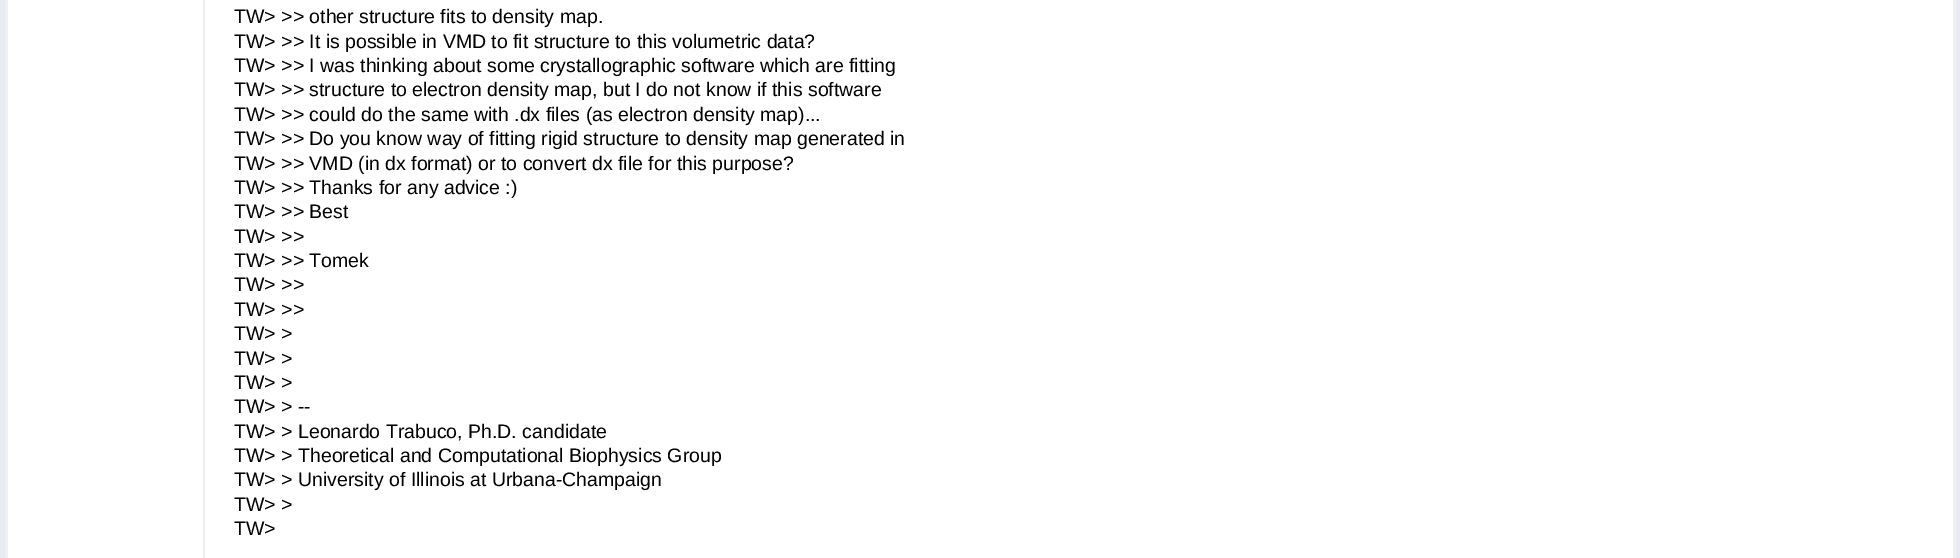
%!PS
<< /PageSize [1960 558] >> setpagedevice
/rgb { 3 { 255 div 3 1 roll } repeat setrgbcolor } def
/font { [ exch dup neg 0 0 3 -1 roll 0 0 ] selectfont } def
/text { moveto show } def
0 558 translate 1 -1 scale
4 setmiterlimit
232 235 241 rgb
0 0 1960 558 rectfill
255 255 255 rgb
8 0 1945 558 rectfill
240 240 242 rgb
1953 0 3 558 rectfill
5 0 3 558 rectfill
238 238 238 rgb
203 0 2 558 rectfill
/LiberationSans-Regular 19.5 font
0 0 0 rgb
(TW> >> other structure fits to density map.) 234 23 text
(TW> >> It is possible in VMD to fit structure to this volumetric data?) 234 48 text
(TW> >> I was thinking about some crystallographic software which are fitting) 234 72 text
(TW> >> structure to electron density map, but I do not know if this software) 234 96 text
(TW> >> could do the same with .dx files \(as electron density map\)...) 234 121 text
(TW> >> Do you know way of fitting rigid structure to density map generated in) 234 145 text
(TW> >> VMD \(in dx format\) or to convert dx file for this purpose?) 234 170 text
(TW> >> Thanks for any advice :\)) 234 194 text
(TW> >> Best) 234 218 text
(TW> >>) 234 243 text
(TW> >> Tomek) 234 267 text
(TW> >>) 234 291 text
(TW> >>) 234 316 text
(TW> >) 234 340 text
(TW> >) 234 365 text
(TW> >) 234 389 text
(TW> > --) 234 413 text
(TW> > Leonardo Trabuco, Ph.D. candidate) 234 438 text
(TW> > Theoretical and Computational Biophysics Group) 234 462 text
(TW> > University of Illinois at Urbana-Champaign) 234 486 text
(TW> >) 234 511 text
(TW>) 234 535 text
showpage
